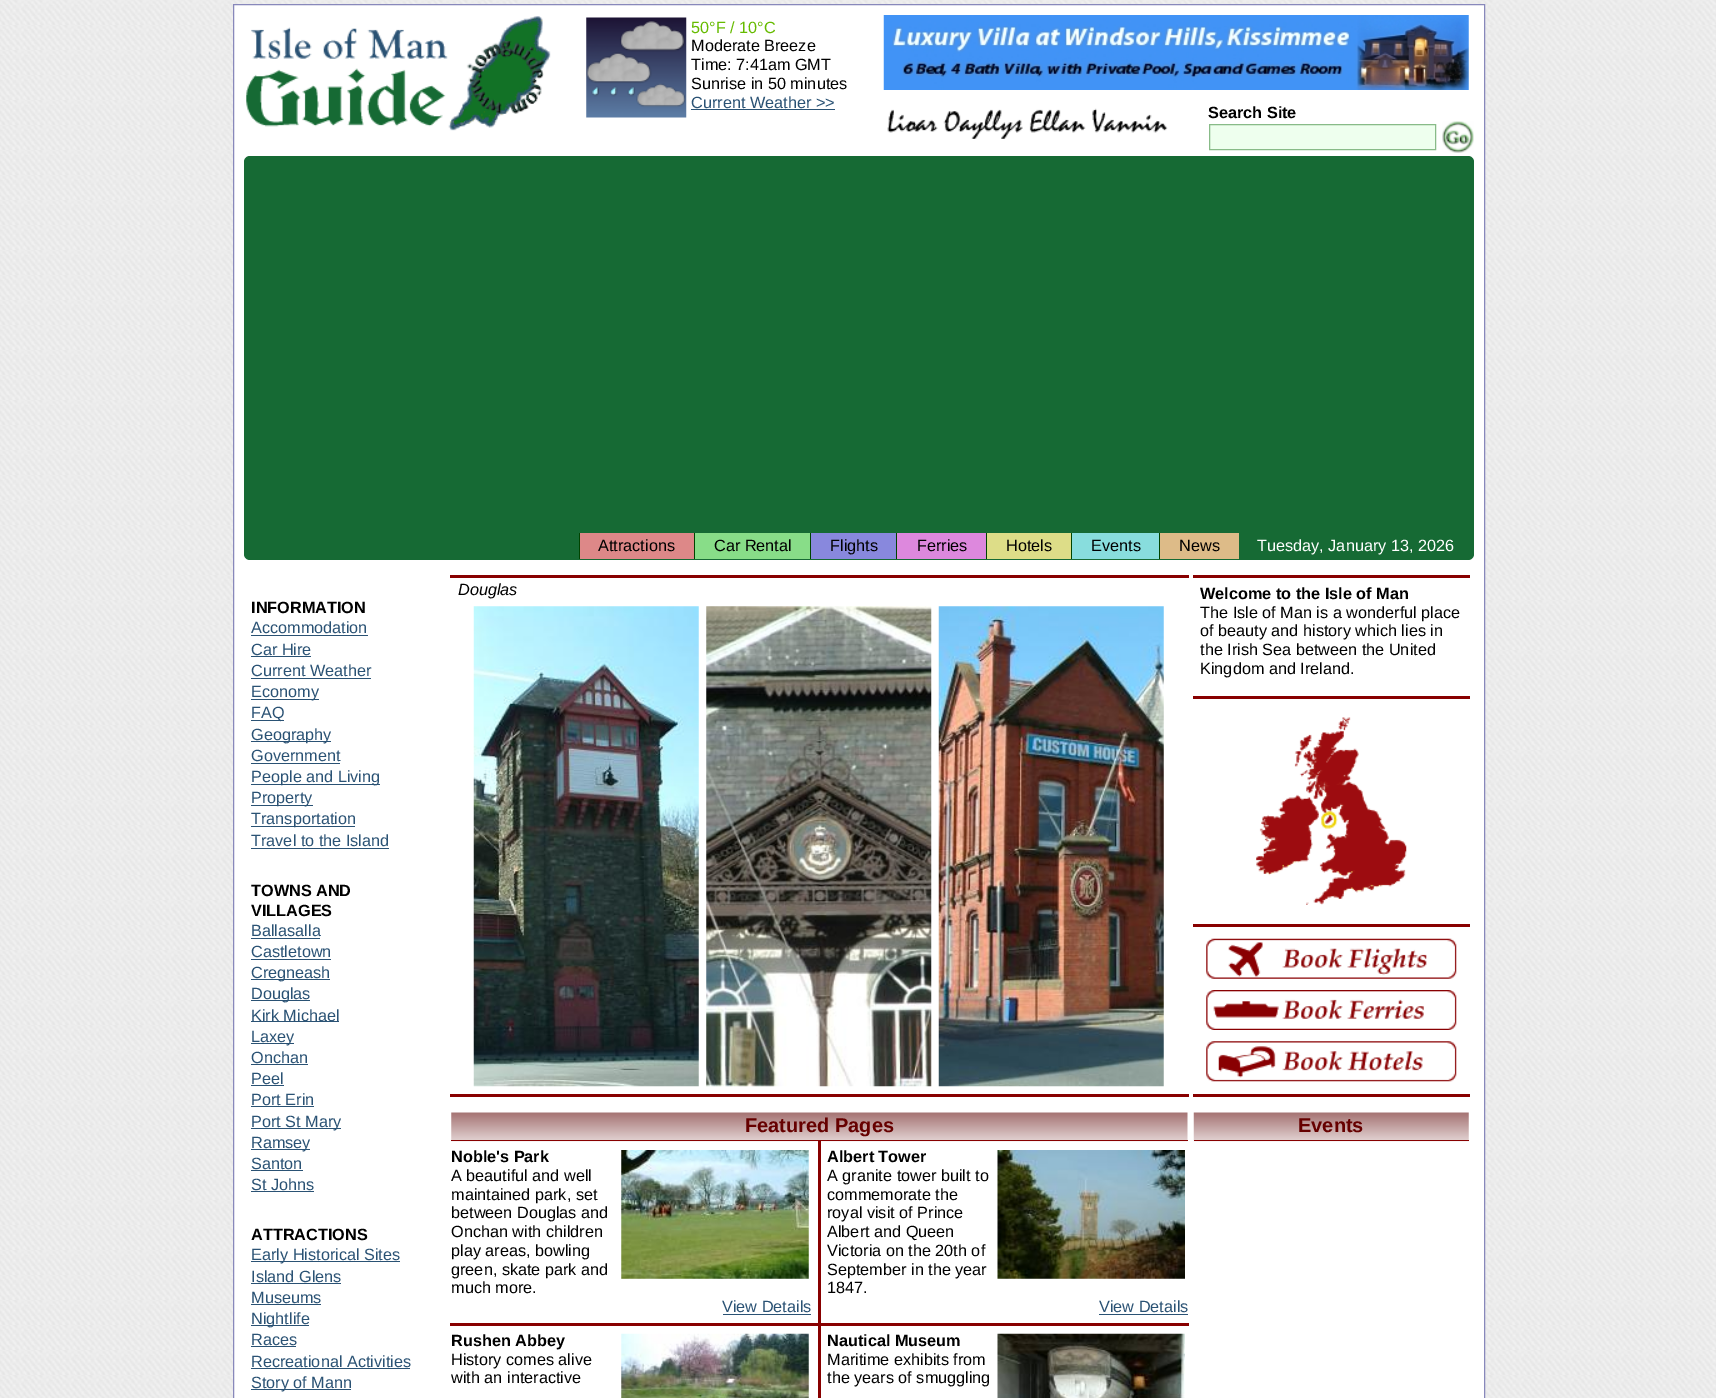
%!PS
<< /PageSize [1716 1398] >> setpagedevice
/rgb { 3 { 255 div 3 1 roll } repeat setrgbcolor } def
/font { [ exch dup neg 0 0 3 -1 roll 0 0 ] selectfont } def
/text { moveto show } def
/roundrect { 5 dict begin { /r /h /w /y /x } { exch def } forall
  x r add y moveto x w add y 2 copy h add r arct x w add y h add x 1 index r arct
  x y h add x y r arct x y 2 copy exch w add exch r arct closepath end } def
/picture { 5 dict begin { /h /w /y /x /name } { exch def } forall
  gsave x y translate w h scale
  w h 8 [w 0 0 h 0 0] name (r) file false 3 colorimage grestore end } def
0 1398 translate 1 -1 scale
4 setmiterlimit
255 255 255 rgb
0 0 1716 1398 rectfill
(img_01.rgb) 0 0 1716 1398 picture
233.5 4.5 moveto 1251 0 rlineto 0 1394 rlineto -1251 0 rlineto closepath gsave fill grestore
136 136 187 rgb
stroke
(img_02.rgb) 246 27 202 100 picture
(img_03.rgb) 447 16 104 115 picture
(img_04.rgb) 586 17 101 101 picture
42 82 116 rgb
691 109 144 1 rectfill
(img_05.rgb) 883 15 586 75 picture
(img_06.rgb) 887 108 281 31 picture
238 255 238 rgb
1209.5 124.5 moveto 226 0 rlineto 0 25 rlineto -226 0 rlineto closepath gsave fill grestore
136 187 136 rgb
stroke
(img_07.rgb) 1442 121 32 32 picture
22 106 52 rgb
244 156 1230 404 6 roundrect fill
221 136 136 rgb
580 533 114 26 rectfill
0 68 0 rgb
579 533 1 26 rectfill
136 221 136 rgb
695 533 115 26 rectfill
0 68 0 rgb
694 533 1 26 rectfill
136 136 221 rgb
811 533 85 26 rectfill
0 68 0 rgb
810 533 1 26 rectfill
221 136 221 rgb
897 533 89 26 rectfill
0 68 0 rgb
896 533 1 26 rectfill
221 221 136 rgb
987 533 84 26 rectfill
0 68 0 rgb
986 533 1 26 rectfill
136 221 221 rgb
1072 533 87 26 rectfill
0 68 0 rgb
1071 533 1 26 rectfill
221 187 136 rgb
1160 533 79 26 rectfill
0 68 0 rgb
1159 533 1 26 rectfill
42 82 116 rgb
251 635 117 1 rectfill
251 656 60 1 rectfill
251 678 120 1 rectfill
251 699 68 1 rectfill
251 720 33 1 rectfill
251 741 80 1 rectfill
251 763 89 1 rectfill
251 784 129 1 rectfill
251 805 62 1 rectfill
251 826 104 1 rectfill
251 848 138 1 rectfill
251 938 69 1 rectfill
251 959 80 1 rectfill
251 979 79 1 rectfill
251 1000 59 1 rectfill
251 1021 88 1 rectfill
251 1043 43 1 rectfill
251 1064 57 1 rectfill
251 1085 33 1 rectfill
251 1106 63 1 rectfill
251 1128 90 1 rectfill
251 1149 59 1 rectfill
251 1170 52 1 rectfill
251 1191 63 1 rectfill
251 1261 149 1 rectfill
251 1283 90 1 rectfill
251 1304 70 1 rectfill
251 1325 58 1 rectfill
251 1346 45 1 rectfill
251 1368 159 1 rectfill
251 1389 100 1 rectfill
136 0 0 rgb
450 575 739 3 rectfill
450 1094 739 3 rectfill
(img_08.rgb) 473 606 226 481 picture
(img_09.rgb) 706 606 226 481 picture
(img_10.rgb) 938 606 226 481 picture
1193 575 277 3 rectfill
1193 696 277 3 rectfill
(img_11.rgb) 1256 717 151 188 picture
1193 924 277 3 rectfill
1193 1094 277 3 rectfill
(img_12.rgb) 1206 938 251 41 picture
(img_13.rgb) 1206 990 251 40 picture
(img_14.rgb) 1206 1041 251 41 picture
(img_15.rgb) 451 1112 737 30 picture
451 1140 737 1 rectfill
(img_16.rgb) 621 1150 188 129 picture
(img_17.rgb) 997 1150 188 129 picture
818 1323 3 75 rectfill
818 1323 371 3 rectfill
818 1140 3 185 rectfill
450 1323 370 3 rectfill
42 82 116 rgb
723 1314 88 1 rectfill
1099 1314 89 1 rectfill
(img_18.rgb) 621 1333 188 65 picture
(img_19.rgb) 997 1333 188 65 picture
(img_20.rgb) 1193 1112 276 30 picture
136 0 0 rgb
1194 1140 275 1 rectfill
/LiberationSans-Regular 16.25 font
102 187 0 rgb
(50°F / 10°C) 691 33 text
0 0 0 rgb
(Moderate Breeze) 691 51 text
(Time: 7:41am GMT) 691 70 text
(Sunrise in 50 minutes) 691 89 text
42 82 116 rgb
(Current Weather >>) 691 108 text
/LiberationSans-Bold 16.25 font
0 0 0 rgb
(Search Site) 1208 118 text
/LiberationSans-Regular 16.25 font
(Attractions) 598 551 text
(Car Rental) 714 551 text
(Flights) 830 551 text
(Ferries) 917 551 text
(Hotels) 1006 551 text
(Events) 1091 551 text
(News) 1179 551 text
255 255 255 rgb
(Tuesday, January 13, 2026) 1257 551 text
/LiberationSans-Bold 16.25 font
0 0 0 rgb
(INFORMATION) 251 613 text
/LiberationSans-Regular 16.25 font
42 82 116 rgb
(Accommodation) 251 633 text
(Car Hire) 251 655 text
(Current Weather) 251 676 text
(Economy) 251 697 text
(FAQ) 251 718 text
(Geography) 251 740 text
(Government) 251 761 text
(People and Living) 251 782 text
(Property) 251 803 text
(Transportation) 251 824 text
(Travel to the Island) 251 846 text
/LiberationSans-Bold 16.25 font
0 0 0 rgb
(TOWNS AND) 251 896 text
(VILLAGES) 251 916 text
/LiberationSans-Regular 16.25 font
42 82 116 rgb
(Ballasalla) 251 936 text
(Castletown) 251 957 text
(Cregneash) 251 978 text
(Douglas) 251 999 text
(Kirk Michael) 251 1021 text
(Laxey) 251 1042 text
(Onchan) 251 1063 text
(Peel) 251 1084 text
(Port Erin) 251 1105 text
(Port St Mary) 251 1127 text
(Ramsey) 251 1148 text
(Santon) 251 1169 text
(St Johns) 251 1190 text
/LiberationSans-Bold 16.25 font
0 0 0 rgb
(ATTRACTIONS) 251 1240 text
/LiberationSans-Regular 16.25 font
42 82 116 rgb
(Early Historical Sites) 251 1260 text
(Island Glens) 251 1282 text
(Museums) 251 1303 text
(Nightlife) 251 1324 text
(Races) 251 1345 text
(Recreational Activities) 251 1367 text
(Story of Mann) 251 1388 text
/LiberationSans-Italic 16.25 font
0 0 0 rgb
(Douglas) 458 595 text
/LiberationSans-Bold 16.25 font
(Welcome to the Isle of Man) 1200 599 text
/LiberationSans-Regular 16.25 font
(The Isle of Man is a wonderful place) 1200 618 text
(of beauty and history which lies in) 1200 636 text
(the Irish Sea between the United) 1200 655 text
(Kingdom and Ireland.) 1200 674 text
/LiberationSans-Bold 20 font
102 0 0 rgb
(Featured Pages) 745 1132 text
/LiberationSans-Bold 16.25 font
0 0 0 rgb
(Noble's Park) 451 1162 text
/LiberationSans-Regular 16.25 font
(A beautiful and well) 451 1181 text
(maintained park, set) 451 1200 text
(between Douglas and) 451 1218 text
(Onchan with children) 451 1237 text
(play areas, bowling) 451 1256 text
(green, skate park and) 451 1275 text
(much more.) 451 1293 text
/LiberationSans-Bold 16.25 font
(Albert Tower) 827 1162 text
/LiberationSans-Regular 16.25 font
(A granite tower built to) 827 1181 text
(commemorate the) 827 1200 text
(royal visit of Prince) 827 1218 text
(Albert and Queen) 827 1237 text
(Victoria on the 20th of) 827 1256 text
(September in the year) 827 1275 text
(1847.) 827 1293 text
42 82 116 rgb
(View Details) 722 1312 text
(View Details) 1099 1312 text
/LiberationSans-Bold 16.25 font
0 0 0 rgb
(Rushen Abbey) 451 1346 text
/LiberationSans-Regular 16.25 font
(History comes alive) 451 1365 text
(with an interactive) 451 1383 text
/LiberationSans-Bold 16.25 font
(Nautical Museum) 827 1346 text
/LiberationSans-Regular 16.25 font
(Maritime exhibits from) 827 1365 text
(the years of smuggling) 827 1383 text
/LiberationSans-Bold 20 font
102 0 0 rgb
(Events) 1298 1132 text
showpage
